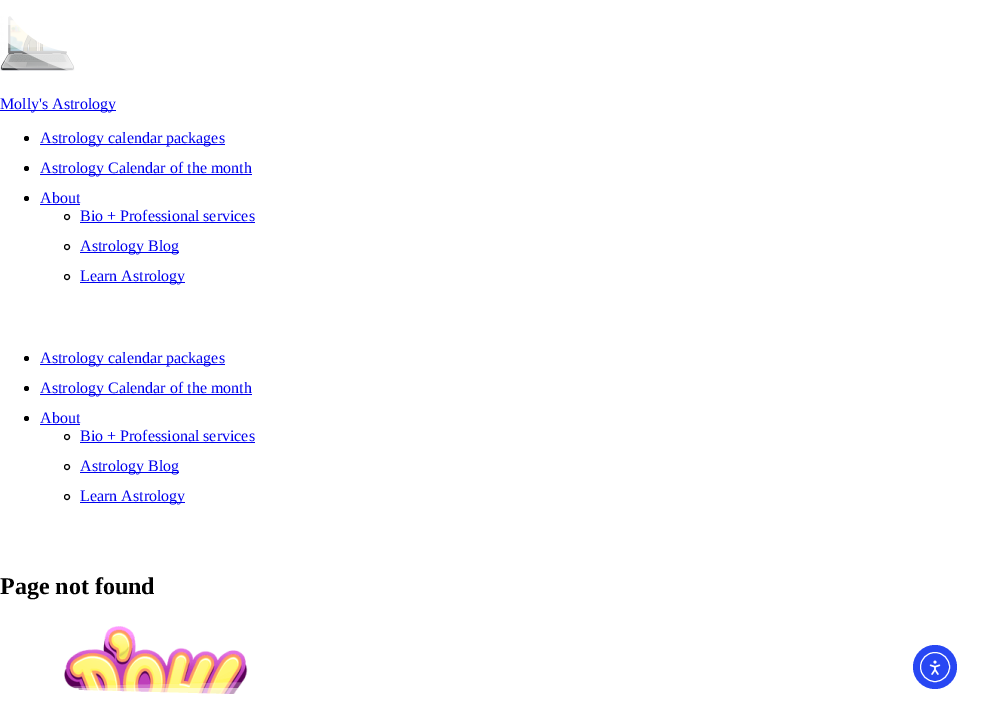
%!PS
<< /PageSize [981 713] /PageUsesTransparency true >> setpagedevice
/rgb { 3 { 255 div 3 1 roll } repeat setrgbcolor } def
/font { [ exch dup neg 0 0 3 -1 roll 0 0 ] selectfont } def
/text { moveto show } def
/alpha { dup .setfillconstantalpha .setstrokeconstantalpha } def
/circle { newpath 0 360 arc closepath } def
/picture { 5 dict begin { /h /w /y /x /name } { exch def } forall
  gsave x y translate w h scale
  w h 8 [w 0 0 h 0 0] name (r) file false 3 colorimage grestore end } def
0 .pushpdf14devicefilter
0 713 translate 1 -1 scale
4 setmiterlimit
255 255 255 rgb
0 0 981 713 rectfill
(img_02.rgb) 0 16 75 55 picture
0.5 alpha
8 16 59 9 rectfill
0.25 alpha
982 -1 moveto -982 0 rlineto 0 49 rlineto 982 -23 rlineto closepath fill
1 alpha
(img_01.rgb) 4 7 71 64 picture
0 0 238 rgb
0 110 116 1 rectfill
0 0 0 rgb
26.5 138.5 2.5 circle fill
0 0 238 rgb
40 144 185 1 rectfill
0 0 0 rgb
26.5 168.5 2.5 circle fill
0 0 238 rgb
40 174 212 1 rectfill
0 0 0 rgb
26.5 198.5 2.5 circle fill
0 0 238 rgb
40 204 40 1 rectfill
0 0 0 rgb
67 217 2.5 circle stroke
0 0 238 rgb
80 222 175 1 rectfill
0 0 0 rgb
67 247 2.5 circle stroke
0 0 238 rgb
80 252 99 1 rectfill
0 0 0 rgb
67 277 2.5 circle stroke
0 0 238 rgb
80 282 105 1 rectfill
0 0 0 rgb
26.5 358.5 2.5 circle fill
0 0 238 rgb
40 364 185 1 rectfill
0 0 0 rgb
26.5 388.5 2.5 circle fill
0 0 238 rgb
40 394 212 1 rectfill
0 0 0 rgb
26.5 418.5 2.5 circle fill
0 0 238 rgb
40 424 40 1 rectfill
0 0 0 rgb
67 437 2.5 circle stroke
0 0 238 rgb
80 442 175 1 rectfill
0 0 0 rgb
67 467 2.5 circle stroke
0 0 238 rgb
80 472 99 1 rectfill
0 0 0 rgb
67 497 2.5 circle stroke
0 0 238 rgb
80 502 105 1 rectfill
(img_03.rgb) 64 626 184 69 picture
255 255 255 rgb
981 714 moveto -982 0 rlineto 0 -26 rlineto closepath fill
0.5 alpha
74 688 165 7 rectfill
0.25 alpha
-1 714 moveto 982 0 rlineto 0 -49 rlineto -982 23 rlineto closepath fill
1 alpha
40 71 243 rgb
935 667 22 circle fill
255 255 255 rgb
935 667 14.5 circle stroke
(img_04.rgb) 929 660 12 15 picture
/LiberationSerif-Regular 16 font
0 0 238 rgb
(Molly's Astrology) 0 109 text
(Astrology calendar packages) 40 143 text
(Astrology Calendar of the month) 40 173 text
(About) 40 203 text
(Bio + Professional services) 80 221 text
(Astrology Blog) 80 251 text
(Learn Astrology) 80 281 text
(Astrology calendar packages) 40 363 text
(Astrology Calendar of the month) 40 393 text
(About) 40 423 text
(Bio + Professional services) 80 441 text
(Astrology Blog) 80 471 text
(Learn Astrology) 80 501 text
/LiberationSerif-Bold 24 font
0 0 0 rgb
(Page not found) 0 594 text
.poppdf14devicefilter showpage
